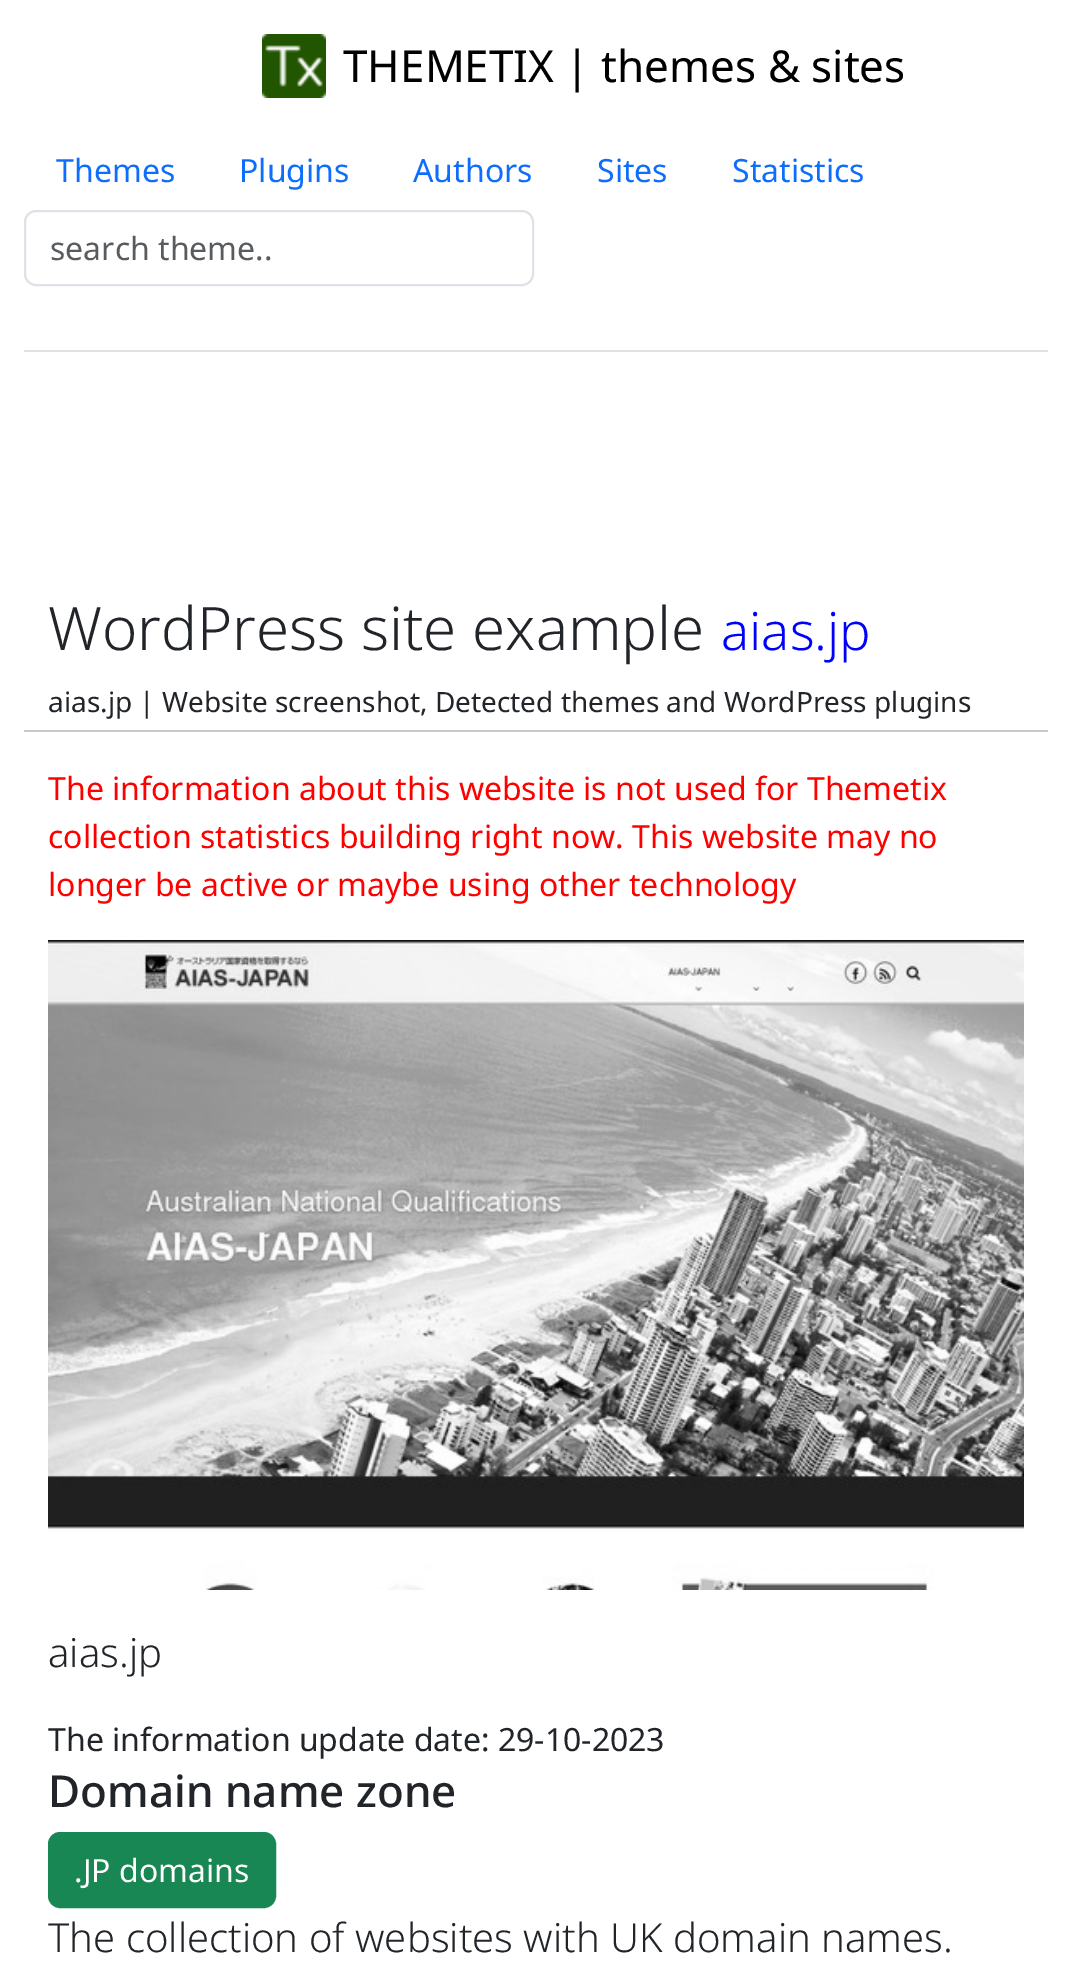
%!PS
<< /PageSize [1072 1978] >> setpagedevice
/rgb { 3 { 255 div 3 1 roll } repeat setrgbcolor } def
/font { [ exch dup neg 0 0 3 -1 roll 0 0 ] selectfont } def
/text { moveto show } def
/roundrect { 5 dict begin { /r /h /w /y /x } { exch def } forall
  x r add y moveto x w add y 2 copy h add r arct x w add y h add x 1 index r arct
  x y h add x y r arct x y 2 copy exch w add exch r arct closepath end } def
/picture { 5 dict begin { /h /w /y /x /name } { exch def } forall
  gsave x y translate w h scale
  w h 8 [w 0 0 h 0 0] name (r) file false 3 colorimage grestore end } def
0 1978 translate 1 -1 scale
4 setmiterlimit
255 255 255 rgb
0 0 1072 1978 rectfill
222 226 230 rgb
24 350 1024 2 rectfill
(img_01.rgb) 262 34 64 64 picture
2 setlinewidth
25 211 508 74 11 roundrect stroke
200 201 202 rgb
24 730 1024 2 rectfill
(img_02.rgb) 48 940 976 650 picture
25 135 84 rgb
49 1833 226 74 11 roundrect gsave fill grestore
stroke
/NotoSans-Regular 44 font
0 0 0 rgb
(THEMETIX | themes & sites) 343 82 text
/NotoSans-Regular 32 font
13 110 253 rgb
(Themes) 56 182 text
(Plugins) 239 182 text
(Authors) 413 182 text
(Sites) 597 182 text
(Statistics) 732 182 text
89 92 95 rgb
(search theme..) 50 260 text
/NotoSans-Light 60 font
33 37 41 rgb
(WordPress site example) 48 650 text
/NotoSans-Light 52.5 font
0 0 255 rgb
(aias.jp) 721 650 text
/NotoSans-Regular 28 font
33 37 41 rgb
(aias.jp | Website screenshot, Detected themes and WordPress plugins) 48 712 text
/NotoSans-Regular 32 font
255 0 0 rgb
(The information about this website is not used for Themetix) 48 800 text
(collection statistics building right now. This website may no) 48 848 text
(longer be active or maybe using other technology) 48 896 text
/NotoSans-Light 40 font
33 37 41 rgb
(aias.jp) 48 1667 text
/NotoSans-Regular 32 font
(The information update date: 29-10-2023) 48 1751 text
/NotoSans-Medium 44 font
(Domain name zone) 48 1807 text
/NotoSans-Regular 32 font
255 255 255 rgb
(.JP domains) 74 1882 text
/NotoSans-Light 40 font
33 37 41 rgb
(The collection of websites with UK domain names.) 48 1952 text
showpage
